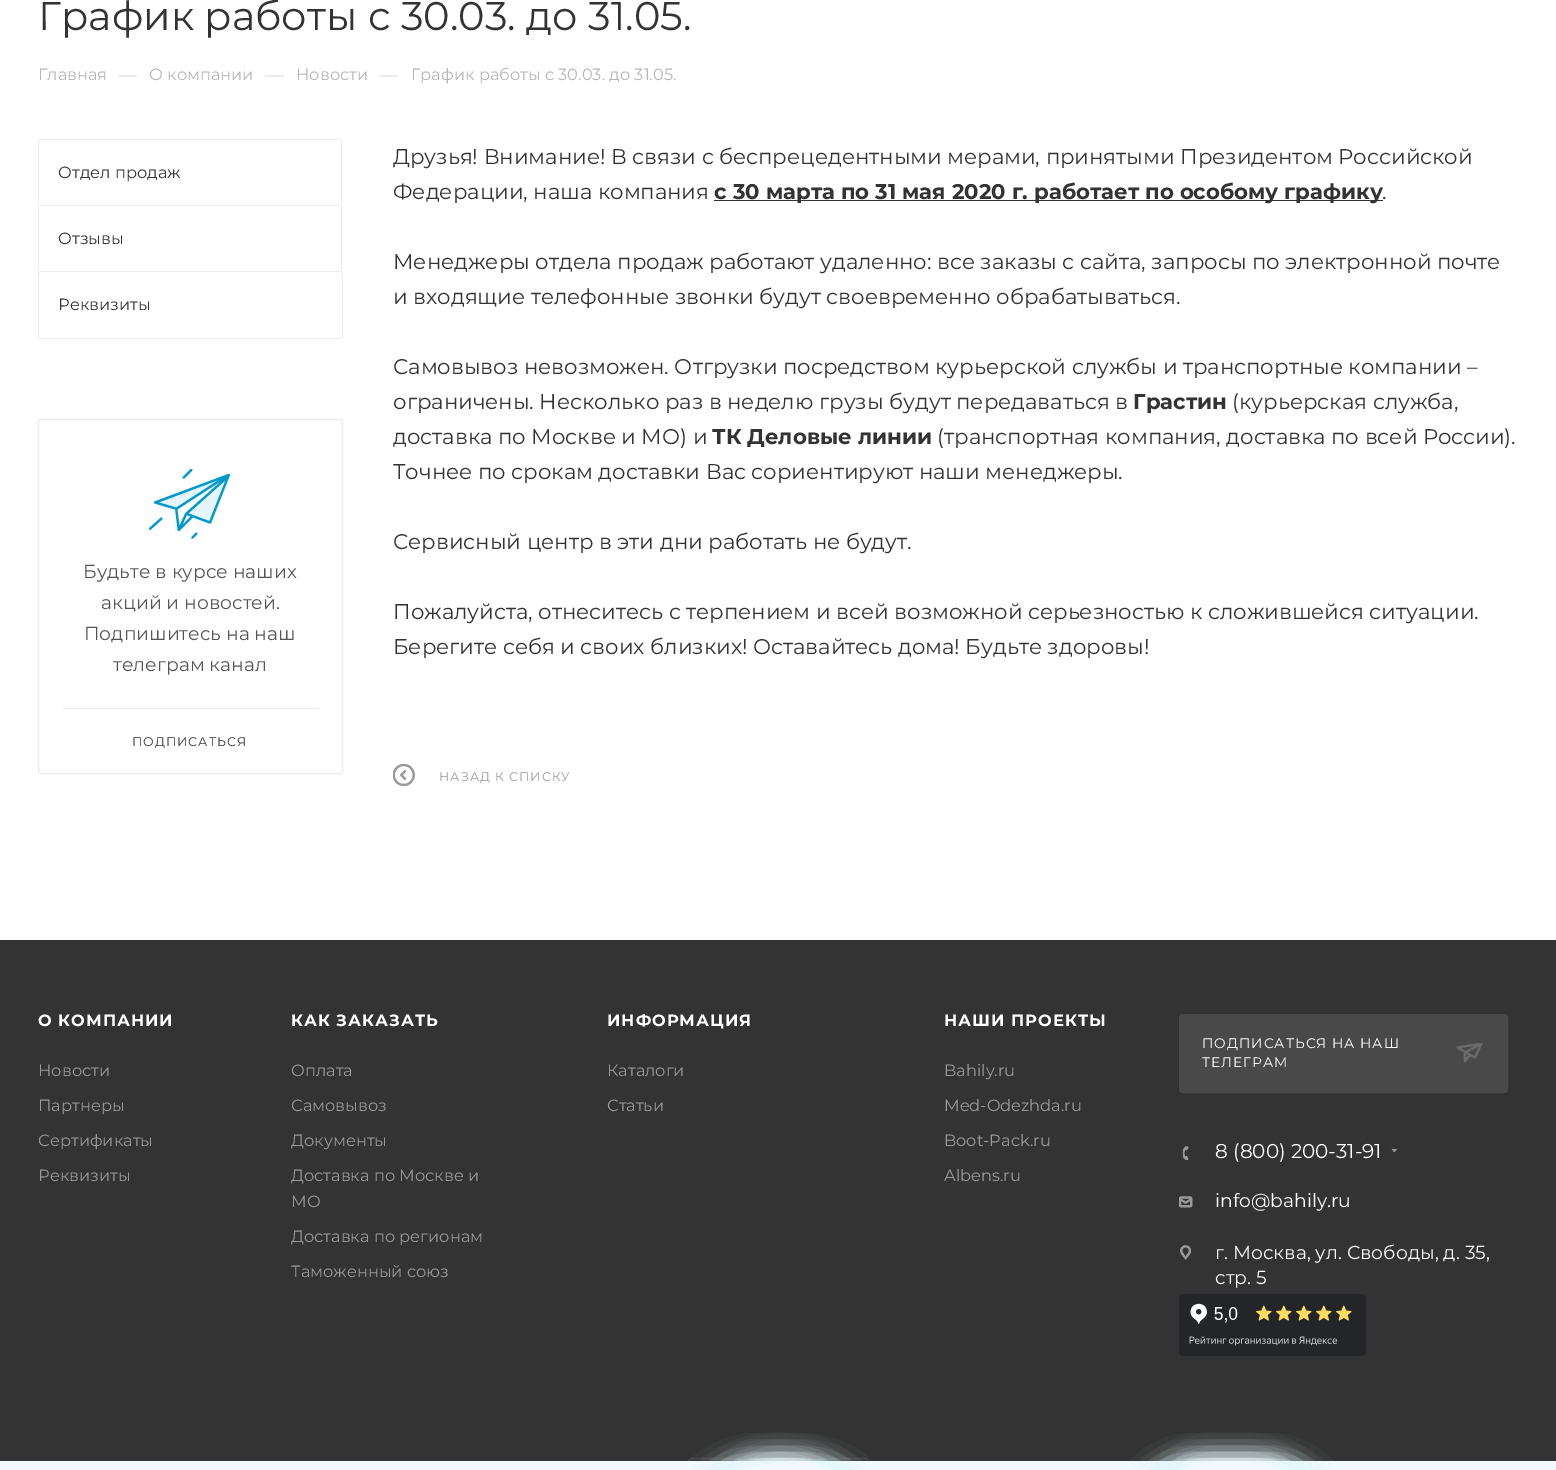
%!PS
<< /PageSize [1556 1470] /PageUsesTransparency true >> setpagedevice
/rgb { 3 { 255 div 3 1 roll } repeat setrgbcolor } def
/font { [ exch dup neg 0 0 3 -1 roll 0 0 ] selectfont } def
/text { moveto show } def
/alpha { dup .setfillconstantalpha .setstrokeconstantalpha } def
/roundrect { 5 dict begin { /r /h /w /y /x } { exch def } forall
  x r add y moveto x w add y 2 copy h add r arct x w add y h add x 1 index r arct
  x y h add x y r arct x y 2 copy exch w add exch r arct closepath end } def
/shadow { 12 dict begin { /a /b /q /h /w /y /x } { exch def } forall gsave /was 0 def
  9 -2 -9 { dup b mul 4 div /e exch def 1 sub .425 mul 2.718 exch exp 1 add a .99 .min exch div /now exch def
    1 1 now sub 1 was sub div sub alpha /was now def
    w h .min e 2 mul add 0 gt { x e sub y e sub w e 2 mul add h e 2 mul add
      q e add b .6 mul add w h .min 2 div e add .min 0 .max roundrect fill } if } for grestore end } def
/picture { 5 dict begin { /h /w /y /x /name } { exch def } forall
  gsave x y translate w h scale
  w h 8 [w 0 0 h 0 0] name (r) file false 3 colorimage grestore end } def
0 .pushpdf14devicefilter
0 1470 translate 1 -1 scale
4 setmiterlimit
255 255 255 rgb
0 0 1556 1470 rectfill
gsave
38 139 305 200 4 roundrect clip newpath
236 236 236 rgb
39 139 302 1 rectfill
grestore
236 236 236 rgb
341 140 1 64 rectfill
38 140 1 64 rectfill
39 205 302 1 rectfill
341 206 1 64 rectfill
38 206 1 64 rectfill
40 271 moveto -1 0 -2 1 -2 3 rcurveto 0 61 rlineto 0 2 2 4 4 4 rcurveto 297 0 rlineto 2 0 4 -2 4 -4 rcurveto 0 -61 rlineto 0 -2 -1 -3 -3 -3 rcurveto closepath 40 272 moveto 0 0 -1 1 -1 2 rcurveto 0 62 rlineto 0 1 1 2 1 2 rcurveto 300 0 rlineto 1 0 2 -1 2 -2 rcurveto 0 -62 rlineto 0 -1 -1 -2 -2 -2 rcurveto closepath eofill
38.5 419.5 304 354 2 roundrect stroke
(img_01.rgb) 149 469 81 70 picture
63 708 255 1 rectfill
51 51 51 rgb
714 200 669 1 rectfill
(img_02.rgb) 393 764 22 22 picture
0 940 1556 521 rectfill
73 73 73 rgb
1179.5 1014.5 328 78 3.5 roundrect gsave fill grestore
stroke
(img_03.rgb) 1456 1043 27 20 picture
(img_04.rgb) 1182 1146 7 14 picture
(img_05.rgb) 1391 1148 6 5 picture
(img_06.rgb) 1179 1196 14 12 picture
(img_07.rgb) 1180 1245 11 15 picture
(img_08.rgb) 1179 1294 187 62 picture
71 71 71 rgb
688.5 1458.5 52 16 3.5 roundrect stroke
751.5 1458.5 53 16 3.5 roundrect stroke
815.5 1458.5 53 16 3.5 roundrect stroke
241 249 252 rgb
0 1461 1556 9 rectfill
197 242 237 rgb
710 1461 166 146 99 12.5 1 shadow
200 235 248 rgb
685 1461 166 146 99 12.5 1 shadow
255 255 255 rgb
698 1461 166 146 99 12.5 1 shadow
241 249 252 rgb
796.5 1461 moveto 37 0 67.5 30.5 67.5 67.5 rcurveto 0 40.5 rlineto -166 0 rlineto 0 -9.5 rlineto 0 -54.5 44 -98.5 98.5 -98.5 rcurveto closepath fill
197 242 237 rgb
1160 1461 168 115 68 12.5 1 shadow
200 235 248 rgb
1135 1461 168 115 68 12.5 1 shadow
255 255 255 rgb
1148 1461 167 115 68 12.5 1 shadow
241 249 252 rgb
1216 1461 moveto 31 0 rlineto 37.5 0 68 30.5 68 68 rcurveto 0 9 rlineto -167 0 rlineto 0 -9 rlineto 0 -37.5 30.5 -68 68 -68 rcurveto closepath fill
/Montserrat-Regular 40 font
51 51 51 rgb
(График работы с 30.03. до 31.05.) 38 30 text
/Montserrat-Regular 16.25 font
182 181 181 rgb
(Главная) 38 80 text
/Montserrat-Regular 18.75 font
221 221 221 rgb
(—) 118 81 text
/Montserrat-Regular 16.25 font
182 181 181 rgb
(О компании) 149 80 text
/Montserrat-Regular 18.75 font
221 221 221 rgb
(—) 265 81 text
/Montserrat-Regular 16.25 font
182 181 181 rgb
(Новости) 296 80 text
/Montserrat-Regular 18.75 font
221 221 221 rgb
(—) 379 81 text
/Montserrat-Regular 16.25 font
182 181 181 rgb
(График работы с 30.03. до 31.05.) 411 80 text
51 51 51 rgb
(Отдел продаж) 58 178 text
(Отзывы) 58 244 text
(Реквизиты) 58 310 text
/Montserrat-Regular 18.75 font
85 85 85 rgb
(Будьте в курсе наших) 83 578 text
(акций и новостей.) 101 609 text
(Подпишитесь на наш) 84 640 text
(телеграм канал) 113 671 text
/Montserrat-Regular 12.5 font
51 51 51 rgb
132 746 moveto 1 0 (ПОДПИСАТЬСЯ) ashow
/Montserrat-Regular 21.25 font
(Друзья! Внимание! В связи с беспрецедентными мерами, принятыми Президентом Российской) 393 164 text
(Федерации, наша компания) 393 199 text
/Montserrat-Bold 21.25 font
(с 30 марта по 31 мая 2020 г. работает по особому графику) 714 199 text
/Montserrat-Regular 21.25 font
(.) 1382 199 text
(Менеджеры отдела продаж работают удаленно: все заказы с сайта, запросы по электронной почте) 393 269 text
(и входящие телефонные звонки будут своевременно обрабатываться.) 393 304 text
(Самовывоз невозможен. Отгрузки посредством курьерской службы и транспортные компании –) 393 374 text
(ограничены. Несколько раз в неделю грузы будут передаваться в) 393 409 text
/Montserrat-Bold 21.25 font
(Грастин) 1133 409 text
/Montserrat-Regular 21.25 font
(\(курьерская служба,) 1232 409 text
(доставка по Москве и МО\) и) 393 444 text
/Montserrat-Bold 21.25 font
(ТК Деловые линии) 712 444 text
/Montserrat-Regular 21.25 font
(\(транспортная компания, доставка по всей России\).) 937 444 text
(Точнее по срокам доставки Вас сориентируют наши менеджеры.) 393 479 text
(Сервисный центр в эти дни работать не будут.) 393 549 text
(Пожалуйста, отнеситесь с терпением и всей возможной серьезностью к сложившейся ситуации.) 393 619 text
(Берегите себя и своих близких! Оставайтесь дома! Будьте здоровы!) 393 654 text
/Montserrat-Regular 12.5 font
153 153 153 rgb
439 781 moveto 1 0 (НАЗАД К СПИСКУ) ashow
/Montserrat-Bold 16.25 font
255 255 255 rgb
38 1026 moveto 1 0 (О КОМПАНИИ) ashow
/Montserrat-Regular 16.25 font
153 153 153 rgb
(Новости) 38 1076 text
(Партнеры) 38 1111 text
(Сертификаты) 38 1146 text
(Реквизиты) 38 1181 text
/Montserrat-Bold 16.25 font
255 255 255 rgb
291 1026 moveto 1 0 (КАК ЗАКАЗАТЬ) ashow
/Montserrat-Regular 16.25 font
153 153 153 rgb
(Оплата) 291 1076 text
(Самовывоз) 291 1111 text
(Документы) 291 1146 text
(Доставка по Москве и) 291 1181 text
(МО) 291 1207 text
(Доставка по регионам) 291 1242 text
(Таможенный союз) 291 1277 text
/Montserrat-Bold 16.25 font
255 255 255 rgb
607 1026 moveto 1 0 (ИНФОРМАЦИЯ) ashow
/Montserrat-Regular 16.25 font
153 153 153 rgb
(Каталоги) 607 1076 text
(Статьи) 607 1111 text
/Montserrat-Bold 16.25 font
255 255 255 rgb
944 1026 moveto 1 0 (НАШИ ПРОЕКТЫ) ashow
/Montserrat-Regular 16.25 font
153 153 153 rgb
(Bahily.ru) 944 1076 text
(Med-Odezhda.ru) 944 1111 text
(Boot-Pack.ru) 944 1146 text
(Albens.ru) 944 1181 text
/Montserrat-Regular 13.75 font
255 255 255 rgb
1202 1048 moveto 1 0 (ПОДПИСАТЬСЯ НА НАШ) ashow
1202 1067 moveto 1 0 (ТЕЛЕГРАМ) ashow
/Montserrat-Regular 20 font
(8 \(800\) 200-31-91) 1215 1158 text
/Montserrat-Regular 18.75 font
(info@bahily.ru) 1215 1207 text
(г. Москва, ул. Свободы, д. 35,) 1215 1259 text
(стр. 5) 1215 1284 text
.poppdf14devicefilter showpage
